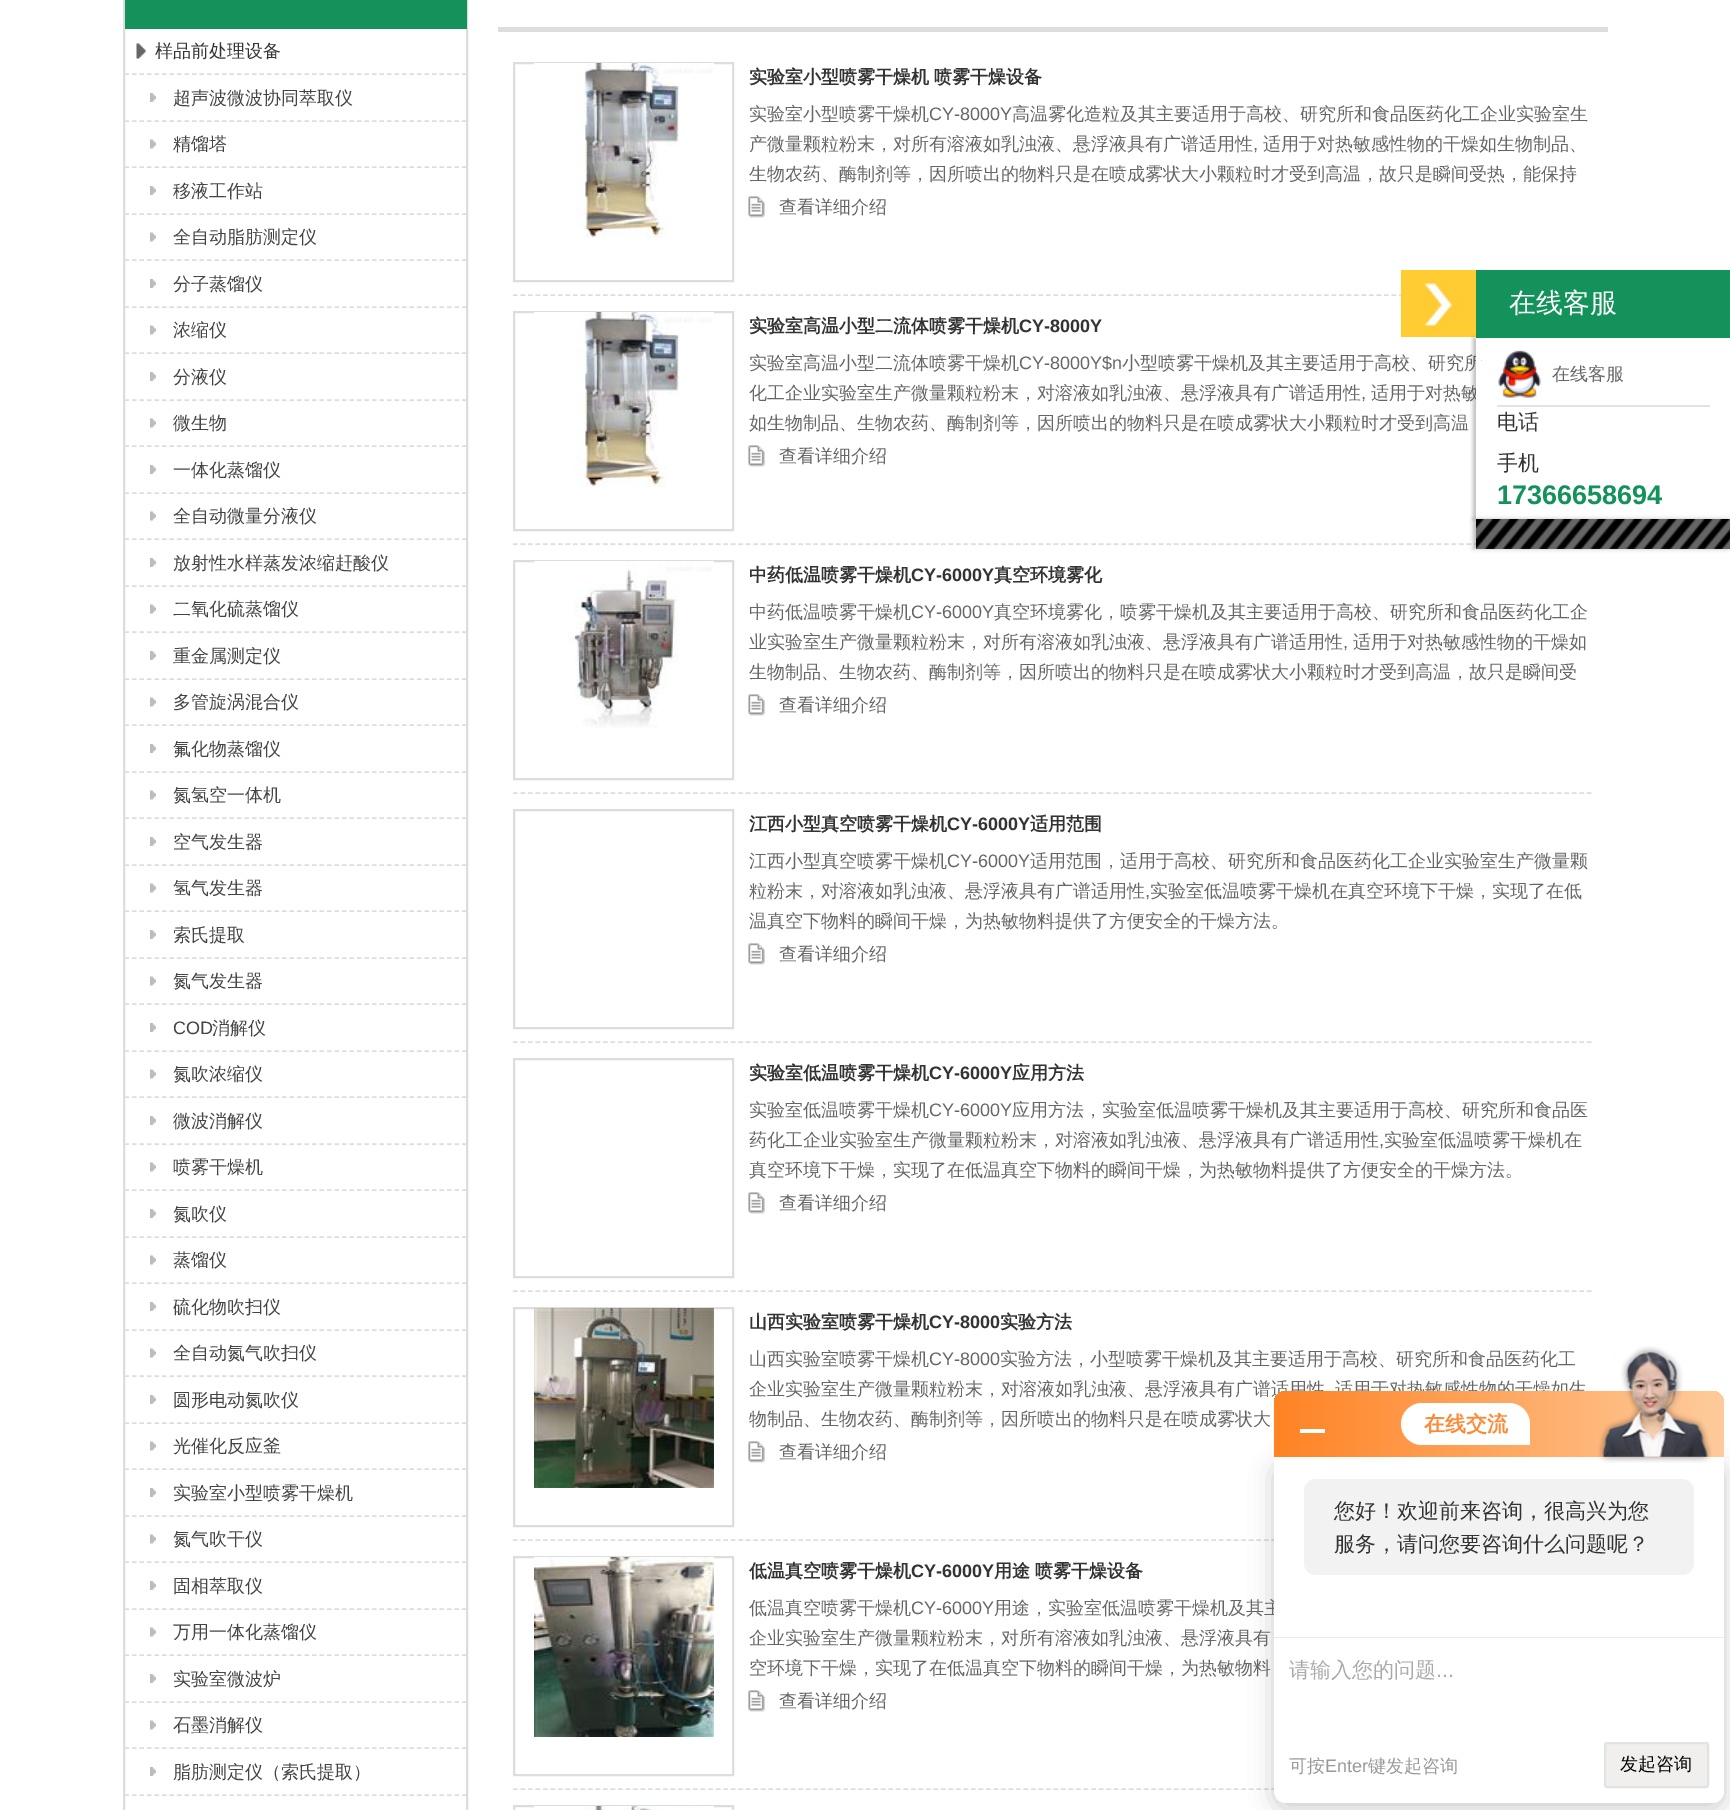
%!PS
<< /PageSize [1730 1810] /PageUsesTransparency true >> setpagedevice
/rgb { 3 { 255 div 3 1 roll } repeat setrgbcolor } def
/font { [ exch dup neg 0 0 3 -1 roll 0 0 ] selectfont } def
/text { moveto show } def
/alpha { dup .setfillconstantalpha .setstrokeconstantalpha } def
/roundrect { 5 dict begin { /r /h /w /y /x } { exch def } forall
  x r add y moveto x w add y 2 copy h add r arct x w add y h add x 1 index r arct
  x y h add x y r arct x y 2 copy exch w add exch r arct closepath end } def
/shadow { 12 dict begin { /a /b /q /h /w /y /x } { exch def } forall gsave /was 0 def
  9 -2 -9 { dup b mul 4 div /e exch def 1 sub .425 mul 2.718 exch exp 1 add a .99 .min exch div /now exch def
    1 1 now sub 1 was sub div sub alpha /was now def
    w h .min e 2 mul add 0 gt { x e sub y e sub w e 2 mul add h e 2 mul add
      q e add b .6 mul add w h .min 2 div e add .min 0 .max roundrect fill } if } for grestore end } def
/picture { 5 dict begin { /h /w /y /x /name } { exch def } forall
  gsave x y translate w h scale
  w h 8 [w 0 0 h 0 0] name (r) file false 3 colorimage grestore end } def
0 .pushpdf14devicefilter
0 1810 translate 1 -1 scale
4 setmiterlimit
255 255 255 rgb
0 0 1730 1810 rectfill
221 221 221 rgb
2 setlinewidth
124 -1 343 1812 rectstroke
21 145 91 rgb
125 0 342 29 rectfill
(img_01.rgb) 136 43 10 16 picture
221 221 221 rgb
1.5 setlinewidth
[4.5 3] 0 setdash
124.5 74 moveto 342 0 rlineto stroke
(img_02.rgb) 150 93 6 9 picture
124.5 121 moveto 342 0 rlineto stroke
(img_03.rgb) 150 139 6 10 picture
124.5 167 moveto 342 0 rlineto stroke
(img_02.rgb) 150 186 6 9 picture
124.5 214 moveto 342 0 rlineto stroke
(img_03.rgb) 150 232 6 10 picture
124.5 260 moveto 342 0 rlineto stroke
(img_02.rgb) 150 279 6 9 picture
124.5 307 moveto 342 0 rlineto stroke
(img_03.rgb) 150 325 6 10 picture
124.5 353 moveto 342 0 rlineto stroke
(img_02.rgb) 150 372 6 9 picture
124.5 400 moveto 342 0 rlineto stroke
(img_03.rgb) 150 418 6 10 picture
124.5 446 moveto 342 0 rlineto stroke
(img_02.rgb) 150 465 6 9 picture
124.5 493 moveto 342 0 rlineto stroke
(img_03.rgb) 150 511 6 10 picture
124.5 539 moveto 342 0 rlineto stroke
(img_02.rgb) 150 558 6 9 picture
124.5 586 moveto 342 0 rlineto stroke
(img_03.rgb) 150 604 6 10 picture
124.5 632 moveto 342 0 rlineto stroke
(img_02.rgb) 150 651 6 9 picture
124.5 679 moveto 342 0 rlineto stroke
(img_03.rgb) 150 697 6 10 picture
124.5 725 moveto 342 0 rlineto stroke
(img_02.rgb) 150 744 6 9 picture
124.5 772 moveto 342 0 rlineto stroke
(img_03.rgb) 150 790 6 10 picture
124.5 818 moveto 342 0 rlineto stroke
(img_02.rgb) 150 837 6 9 picture
124.5 865 moveto 342 0 rlineto stroke
(img_03.rgb) 150 883 6 10 picture
124.5 911 moveto 342 0 rlineto stroke
(img_02.rgb) 150 930 6 9 picture
124.5 958 moveto 342 0 rlineto stroke
(img_03.rgb) 150 976 6 10 picture
124.5 1004 moveto 342 0 rlineto stroke
(img_02.rgb) 150 1023 6 9 picture
124.5 1051 moveto 342 0 rlineto stroke
(img_03.rgb) 150 1069 6 10 picture
124.5 1097 moveto 342 0 rlineto stroke
(img_02.rgb) 150 1116 6 9 picture
124.5 1144 moveto 342 0 rlineto stroke
(img_03.rgb) 150 1162 6 10 picture
124.5 1190 moveto 342 0 rlineto stroke
(img_02.rgb) 150 1209 6 9 picture
124.5 1237 moveto 342 0 rlineto stroke
(img_03.rgb) 150 1255 6 10 picture
124.5 1283 moveto 342 0 rlineto stroke
(img_02.rgb) 150 1302 6 9 picture
124.5 1330 moveto 342 0 rlineto stroke
(img_03.rgb) 150 1348 6 10 picture
124.5 1376 moveto 342 0 rlineto stroke
(img_02.rgb) 150 1395 6 9 picture
124.5 1423 moveto 342 0 rlineto stroke
(img_03.rgb) 150 1441 6 10 picture
124.5 1469 moveto 342 0 rlineto stroke
(img_02.rgb) 150 1488 6 9 picture
124.5 1516 moveto 342 0 rlineto stroke
(img_03.rgb) 150 1534 6 10 picture
124.5 1562 moveto 342 0 rlineto stroke
(img_02.rgb) 150 1581 6 9 picture
124.5 1609 moveto 342 0 rlineto stroke
(img_03.rgb) 150 1627 6 10 picture
124.5 1655 moveto 342 0 rlineto stroke
(img_02.rgb) 150 1674 6 9 picture
124.5 1702 moveto 342 0 rlineto stroke
(img_03.rgb) 150 1720 6 10 picture
124.5 1748 moveto 342 0 rlineto stroke
(img_02.rgb) 150 1767 6 9 picture
124.5 1795 moveto 342 0 rlineto stroke
498 27 1110 5 rectfill
[4.5 3.01] 0 setdash
513 295 moveto 1080 0 rlineto stroke
2 setlinewidth
[] 0 setdash
514 63 219 218 rectstroke
(img_04.rgb) 534 63 180 175 picture
(img_05.rgb) 748 196 17 22 picture
1.5 setlinewidth
[4.5 3.01] 0 setdash
513 544 moveto 1080 0 rlineto stroke
2 setlinewidth
[] 0 setdash
514 312 219 218 rectstroke
(img_04.rgb) 534 312 180 175 picture
(img_05.rgb) 748 445 17 22 picture
1.5 setlinewidth
[4.5 3.01] 0 setdash
513 793 moveto 1080 0 rlineto stroke
2 setlinewidth
[] 0 setdash
514 561 219 218 rectstroke
(img_06.rgb) 534 561 180 167 picture
(img_05.rgb) 748 694 17 22 picture
1.5 setlinewidth
[4.5 3.01] 0 setdash
513 1042 moveto 1080 0 rlineto stroke
2 setlinewidth
[] 0 setdash
514 810 219 218 rectstroke
(img_05.rgb) 748 943 17 22 picture
1.5 setlinewidth
[4.5 3.01] 0 setdash
513 1291 moveto 1080 0 rlineto stroke
2 setlinewidth
[] 0 setdash
514 1059 219 218 rectstroke
(img_05.rgb) 748 1192 17 22 picture
1.5 setlinewidth
[4.5 3.01] 0 setdash
513 1540 moveto 1080 0 rlineto stroke
2 setlinewidth
[] 0 setdash
514 1308 219 218 rectstroke
(img_07.rgb) 534 1308 180 180 picture
(img_05.rgb) 748 1441 17 22 picture
1.5 setlinewidth
[4.5 3.01] 0 setdash
513 1789 moveto 1080 0 rlineto stroke
2 setlinewidth
[] 0 setdash
514 1557 219 218 rectstroke
(img_08.rgb) 534 1557 180 180 picture
(img_05.rgb) 748 1690 17 22 picture
514 1806 219 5 rectstroke
(img_09.rgb) 534 1806 180 4 picture
(img_10.rgb) 1401 270 75 67 picture
0 0 0 rgb
1473 519 255 30 0 2 0.25 shadow
1274 1463 450 346 12 12 0.2 shadow
/WenQuanYiZenHei-Medium 18 font
51 51 51 rgb
(样品前处理设备) 155 57 text
68 68 68 rgb
(超声波微波协同萃取仪) 173 104 text
(精馏塔) 173 150 text
(移液工作站) 173 197 text
(全自动脂肪测定仪) 173 243 text
(分子蒸馏仪) 173 290 text
(浓缩仪) 173 336 text
(分液仪) 173 383 text
(微生物) 173 429 text
(一体化蒸馏仪) 173 476 text
(全自动微量分液仪) 173 522 text
(放射性水样蒸发浓缩赶酸仪) 173 569 text
(二氧化硫蒸馏仪) 173 615 text
(重金属测定仪) 173 662 text
(多管旋涡混合仪) 173 708 text
(氟化物蒸馏仪) 173 755 text
(氮氢空一体机) 173 801 text
(空气发生器) 173 848 text
(氢气发生器) 173 894 text
(索氏提取) 173 941 text
(氮气发生器) 173 987 text
/LiberationSans-Regular 18 font
(COD) 173 1034 text
/WenQuanYiZenHei-Medium 18 font
(消解仪) 212 1034 text
(氮吹浓缩仪) 173 1080 text
(微波消解仪) 173 1127 text
(喷雾干燥机) 173 1173 text
(氮吹仪) 173 1220 text
(蒸馏仪) 173 1266 text
(硫化物吹扫仪) 173 1313 text
(全自动氮气吹扫仪) 173 1359 text
(圆形电动氮吹仪) 173 1406 text
(光催化反应釜) 173 1452 text
(实验室小型喷雾干燥机) 173 1499 text
(氮气吹干仪) 173 1545 text
(固相萃取仪) 173 1592 text
(万用一体化蒸馏仪) 173 1638 text
(实验室微波炉) 173 1685 text
(石墨消解仪) 173 1731 text
(脂肪测定仪（索氏提取）) 173 1778 text
/WenQuanYiZenHei-Bold 18 font
51 51 51 rgb
(实验室小型喷雾干燥机 喷雾干燥设备) 749 83 text
/WenQuanYiZenHei-Medium 18 font
102 102 102 rgb
(实验室小型喷雾干燥机) 749 120 text
/LiberationSans-Regular 18 font
(CY-8000Y) 929 120 text
/WenQuanYiZenHei-Medium 18 font
(高温雾化造粒及其主要适用于高校、研究所和食品医药化工企业实验室生) 1012 120 text
(产微量颗粒粉末，对所有溶液如乳浊液、悬浮液具有广谱适用性) 749 150 text
/LiberationSans-Regular 18 font
(,) 1253 150 text
/WenQuanYiZenHei-Medium 18 font
(适用于对热敏感性物的干燥如生物制品、) 1263 150 text
(生物农药、酶制剂等，因所喷出的物料只是在喷成雾状大小颗粒时才受到高温，故只是瞬间受热，能保持) 749 180 text
(查看详细介绍) 779 213 text
/WenQuanYiZenHei-Bold 18 font
51 51 51 rgb
(实验室高温小型二流体喷雾干燥机) 749 332 text
/LiberationSans-Bold 18 font
(CY-8000Y) 1019 332 text
/WenQuanYiZenHei-Medium 18 font
102 102 102 rgb
(实验室高温小型二流体喷雾干燥机) 749 369 text
/LiberationSans-Regular 18 font
(CY-8000Y$n) 1019 369 text
/WenQuanYiZenHei-Medium 18 font
(小型喷雾干燥机及其主要适用于高校、研究所) 1122 369 text
(化工企业实验室生产微量颗粒粉末，对溶液如乳浊液、悬浮液具有广谱适用性) 749 399 text
/LiberationSans-Regular 18 font
(,) 1361 399 text
/WenQuanYiZenHei-Medium 18 font
(适用于对热敏) 1371 399 text
(如生物制品、生物农药、酶制剂等，因所喷出的物料只是在喷成雾状大小颗粒时才受到高温) 749 429 text
(查看详细介绍) 779 462 text
/WenQuanYiZenHei-Bold 18 font
51 51 51 rgb
(中药低温喷雾干燥机) 749 581 text
/LiberationSans-Bold 18 font
(CY-6000Y) 911 581 text
/WenQuanYiZenHei-Bold 18 font
(真空环境雾化) 994 581 text
/WenQuanYiZenHei-Medium 18 font
102 102 102 rgb
(中药低温喷雾干燥机) 749 618 text
/LiberationSans-Regular 18 font
(CY-6000Y) 911 618 text
/WenQuanYiZenHei-Medium 18 font
(真空环境雾化，喷雾干燥机及其主要适用于高校、研究所和食品医药化工企) 994 618 text
(业实验室生产微量颗粒粉末，对所有溶液如乳浊液、悬浮液具有广谱适用性) 749 648 text
/LiberationSans-Regular 18 font
(,) 1343 648 text
/WenQuanYiZenHei-Medium 18 font
(适用于对热敏感性物的干燥如) 1353 648 text
(生物制品、生物农药、酶制剂等，因所喷出的物料只是在喷成雾状大小颗粒时才受到高温，故只是瞬间受) 749 678 text
(查看详细介绍) 779 711 text
/WenQuanYiZenHei-Bold 18 font
51 51 51 rgb
(江西小型真空喷雾干燥机) 749 830 text
/LiberationSans-Bold 18 font
(CY-6000Y) 947 830 text
/WenQuanYiZenHei-Bold 18 font
(适用范围) 1030 830 text
/WenQuanYiZenHei-Medium 18 font
102 102 102 rgb
(江西小型真空喷雾干燥机) 749 867 text
/LiberationSans-Regular 18 font
(CY-6000Y) 947 867 text
/WenQuanYiZenHei-Medium 18 font
(适用范围，适用于高校、研究所和食品医药化工企业实验室生产微量颗) 1030 867 text
(粒粉末，对溶液如乳浊液、悬浮液具有广谱适用性) 749 897 text
/LiberationSans-Regular 18 font
(,) 1145 897 text
/WenQuanYiZenHei-Medium 18 font
(实验室低温喷雾干燥机在真空环境下干燥，实现了在低) 1150 897 text
(温真空下物料的瞬间干燥，为热敏物料提供了方便安全的干燥方法。) 749 927 text
(查看详细介绍) 779 960 text
/WenQuanYiZenHei-Bold 18 font
51 51 51 rgb
(实验室低温喷雾干燥机) 749 1079 text
/LiberationSans-Bold 18 font
(CY-6000Y) 929 1079 text
/WenQuanYiZenHei-Bold 18 font
(应用方法) 1012 1079 text
/WenQuanYiZenHei-Medium 18 font
102 102 102 rgb
(实验室低温喷雾干燥机) 749 1116 text
/LiberationSans-Regular 18 font
(CY-6000Y) 929 1116 text
/WenQuanYiZenHei-Medium 18 font
(应用方法，实验室低温喷雾干燥机及其主要适用于高校、研究所和食品医) 1012 1116 text
gsave
749 1095 840 90 rectclip
(药化工企业实验室生产微量颗粒粉末，对溶液如乳浊液、悬浮液具有广谱适用性) 749 1146 text
grestore
/LiberationSans-Regular 18 font
(,) 1379 1146 text
/WenQuanYiZenHei-Medium 18 font
(实验室低温喷雾干燥机在) 1384 1146 text
(真空环境下干燥，实现了在低温真空下物料的瞬间干燥，为热敏物料提供了方便安全的干燥方法。) 749 1176 text
(查看详细介绍) 779 1209 text
/WenQuanYiZenHei-Bold 18 font
51 51 51 rgb
(山西实验室喷雾干燥机) 749 1328 text
/LiberationSans-Bold 18 font
(CY-8000) 929 1328 text
/WenQuanYiZenHei-Bold 18 font
(实验方法) 1000 1328 text
/WenQuanYiZenHei-Medium 18 font
102 102 102 rgb
(山西实验室喷雾干燥机) 749 1365 text
/LiberationSans-Regular 18 font
(CY-8000) 929 1365 text
/WenQuanYiZenHei-Medium 18 font
(实验方法，小型喷雾干燥机及其主要适用于高校、研究所和食品医药化工) 1000 1365 text
(企业实验室生产微量颗粒粉末，对溶液如乳浊液、悬浮液具有广谱适用性) 749 1395 text
(适用于对热敏感性物的干燥如生) 1335 1395 text
gsave
749 1344 840 90 rectclip
(物制品、生物农药、酶制剂等，因所喷出的物料只是在喷成雾状大) 749 1425 text
grestore
(查看详细介绍) 779 1458 text
/WenQuanYiZenHei-Bold 18 font
51 51 51 rgb
(低温真空喷雾干燥机) 749 1577 text
/LiberationSans-Bold 18 font
(CY-6000Y) 911 1577 text
/WenQuanYiZenHei-Bold 18 font
(用途 喷雾干燥设备) 994 1577 text
/WenQuanYiZenHei-Medium 18 font
102 102 102 rgb
(低温真空喷雾干燥机) 749 1614 text
/LiberationSans-Regular 18 font
(CY-6000Y) 911 1614 text
/WenQuanYiZenHei-Medium 18 font
(用途，实验室低温喷雾干燥机及其主) 994 1614 text
(企业实验室生产微量颗粒粉末，对所有溶液如乳浊液、悬浮液具有) 749 1644 text
(空环境下干燥，实现了在低温真空下物料的瞬间干燥，为热敏物料) 749 1674 text
(查看详细介绍) 779 1707 text
255 255 255 rgb
1476 354 5 47 rectfill
gsave
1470 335 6 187 rectclip
0 0 0 rgb
1473 338 255 181 0 2 0.25 shadow
grestore
19 146 91 rgb
1476 270 254 68 rectfill
/WenQuanYiZenHei-Medium 27 font
255 255 255 rgb
(在线客服) 1509 312 text
227 227 227 rgb
1497 405 213 2 rectfill
(img_11.rgb) 1498 350 44 50 picture
/WenQuanYiZenHei-Medium 18 font
102 102 102 rgb
(在线客服) 1552 380 text
/WenQuanYiZenHei-Medium 21 font
51 51 51 rgb
(电话) 1497 429 text
(手机) 1497 470 text
/LiberationSans-Bold 27 font
19 146 91 rgb
(17366658694) 1497 504 text
(img_12.rgb) 1476 519 254 30 picture
gsave 1286 1391 moveto 426 0 rlineto 6.5 0 12 5.5 12 12 rcurveto 0 54 rlineto -450 0 rlineto 0 -54 rlineto 0 -6.5 5.5 -12 12 -12 rcurveto closepath clip newpath
<< /ShadingType 2 /ColorSpace /DeviceRGB /Coords [1274 1424 1724 1424] /Extend [true true] /Function << /FunctionType 2 /Domain [0 1] /C0 [1 0.514 0.141] /C1 [0.996 0.796 0.612] /N 1 >> >> shfill grestore
255 255 255 rgb
1300 1429 25 4 rectfill
1422 1403 moveto 87 0 rlineto 11.5 0 21 9.5 21 21 rcurveto 0 21 rlineto -108 0 rlineto -11.5 0 -21 -9.5 -21 -21 rcurveto 0 -11.5 9.5 -21 21 -21 rcurveto closepath fill
/WenQuanYiZenHei-Bold 21 font
251 139 54 rgb
(在线交流) 1424 1431 text
255 255 255 rgb
1274 1457 moveto 450 0 rlineto 0 334 rlineto 0 6.5 -5.5 12 -12 12 rcurveto -426 0 rlineto -6.5 0 -12 -5.5 -12 -12 rcurveto closepath fill
(img_13.rgb) 1598 1346 114 117 picture
242 242 242 rgb
1304 1479 390 96 12 roundrect fill
/WenQuanYiZenHei-Medium 21 font
51 51 51 rgb
(您好！欢迎前来咨询，很高兴为您) 1334 1518 text
(服务，请问您要咨询什么问题呢？) 1334 1551 text
234 234 234 rgb
1274 1637 450 1 rectfill
170 170 170 rgb
(请输入您的问题) 1289 1677 text
/LiberationSans-Regular 21 font
(...) 1436 1677 text
/WenQuanYiZenHei-Medium 18 font
153 153 153 rgb
(可按) 1289 1772 text
/LiberationSans-Regular 18 font
(Enter) 1325 1772 text
/WenQuanYiZenHei-Medium 18 font
(键发起咨询) 1368 1772 text
240 239 237 rgb
1605 1743 103 44 2 roundrect gsave fill grestore
226 226 226 rgb
stroke
0 0 0 rgb
(发起咨询) 1620 1770 text
.poppdf14devicefilter showpage
